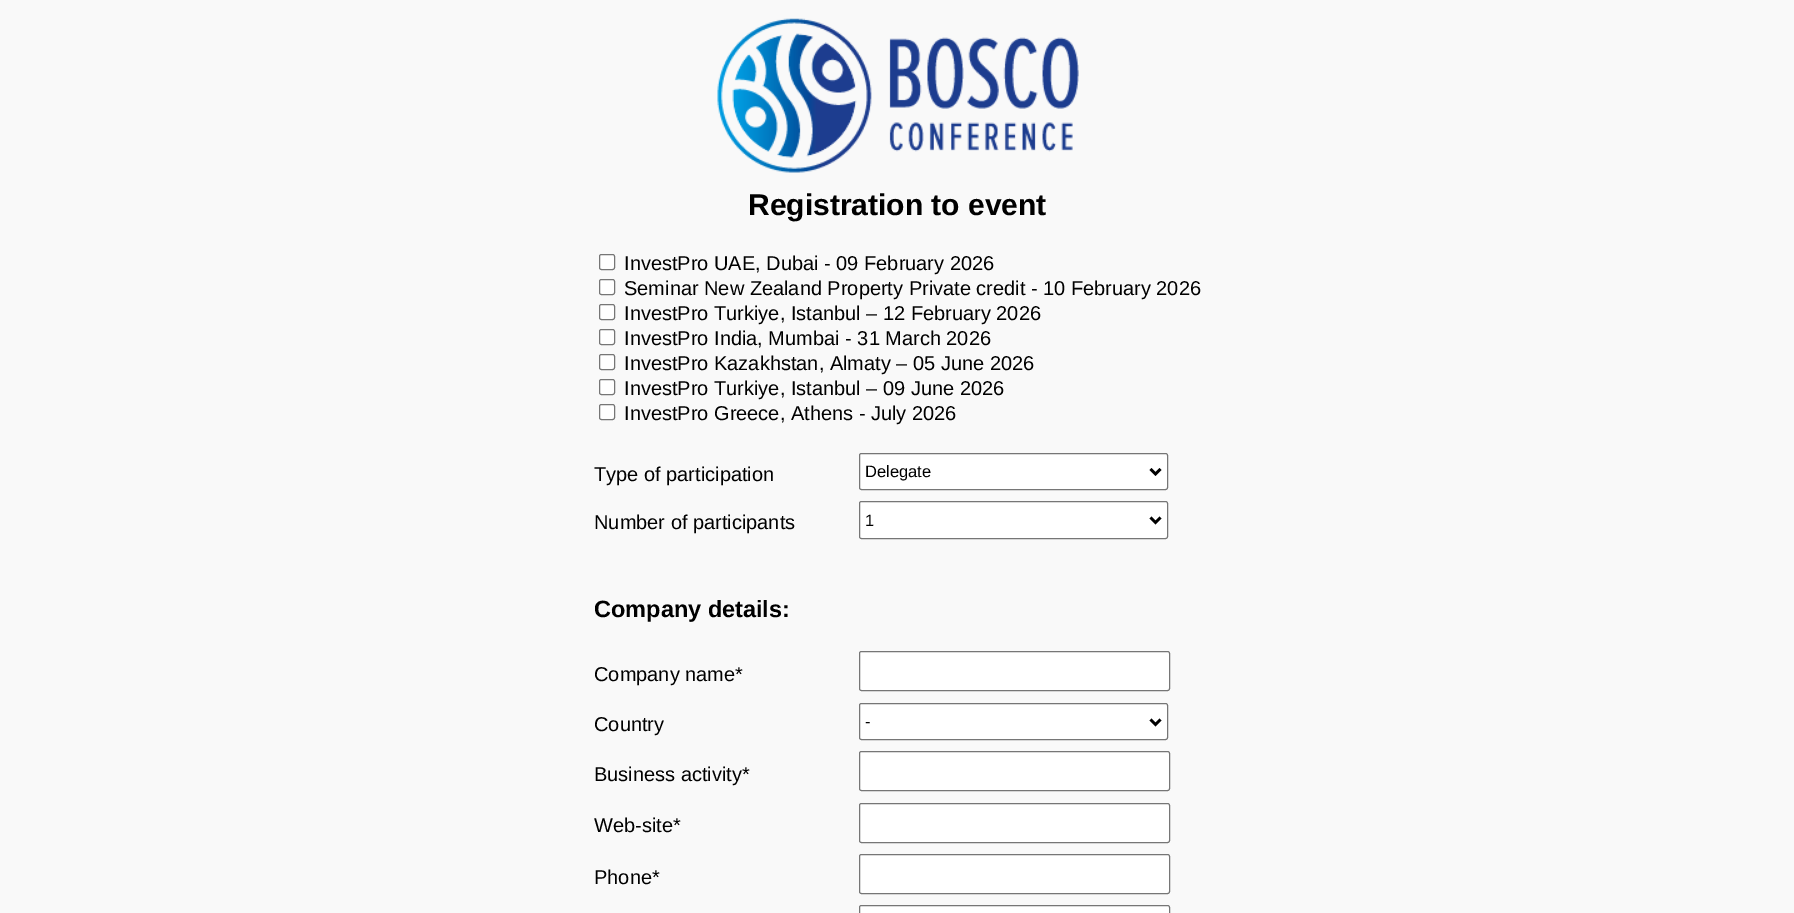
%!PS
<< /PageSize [1794 913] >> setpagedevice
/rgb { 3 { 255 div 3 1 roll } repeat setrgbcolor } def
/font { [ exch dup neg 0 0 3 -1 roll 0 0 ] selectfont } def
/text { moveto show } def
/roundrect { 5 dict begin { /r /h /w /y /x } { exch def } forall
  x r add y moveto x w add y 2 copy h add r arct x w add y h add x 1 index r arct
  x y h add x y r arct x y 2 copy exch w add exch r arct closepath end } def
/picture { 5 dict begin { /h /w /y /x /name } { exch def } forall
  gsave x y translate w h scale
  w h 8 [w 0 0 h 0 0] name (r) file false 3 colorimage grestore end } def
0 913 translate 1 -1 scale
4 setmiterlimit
249 249 249 rgb
0 0 1794 913 rectfill
(img_01.rgb) 717 18 362 155 picture
255 255 255 rgb
599.5 254.5 15 15 2 roundrect gsave fill grestore
118 118 118 rgb
stroke
255 255 255 rgb
599.5 279.5 15 15 2 roundrect gsave fill grestore
118 118 118 rgb
stroke
255 255 255 rgb
599.5 304.5 15 15 2 roundrect gsave fill grestore
118 118 118 rgb
stroke
255 255 255 rgb
599.5 329.5 15 15 2 roundrect gsave fill grestore
118 118 118 rgb
stroke
255 255 255 rgb
599.5 354.5 15 15 2 roundrect gsave fill grestore
118 118 118 rgb
stroke
255 255 255 rgb
599.5 379.5 15 15 2 roundrect gsave fill grestore
118 118 118 rgb
stroke
255 255 255 rgb
599.5 404.5 15 15 2 roundrect gsave fill grestore
118 118 118 rgb
stroke
255 255 255 rgb
859.5 453.5 308 36 2 roundrect gsave fill grestore
118 118 118 rgb
stroke
0 0 0 rgb
2.5 setlinewidth
1150.5 469 moveto 5 5 rlineto 5 -5 rlineto stroke
255 255 255 rgb
859.5 501.5 308 37 2 roundrect gsave fill grestore
118 118 118 rgb
1 setlinewidth
stroke
0 0 0 rgb
2.5 setlinewidth
1150.5 517.5 moveto 5 5 rlineto 5 -5 rlineto stroke
255 255 255 rgb
859.5 651.5 310 39 2 roundrect gsave fill grestore
118 118 118 rgb
1 setlinewidth
stroke
255 255 255 rgb
859.5 703.5 308 36 2 roundrect gsave fill grestore
118 118 118 rgb
stroke
0 0 0 rgb
2.5 setlinewidth
1150.5 719.5 moveto 5 5 rlineto 5 -5 rlineto stroke
255 255 255 rgb
859.5 751.5 310 39 2 roundrect gsave fill grestore
118 118 118 rgb
1 setlinewidth
stroke
255 255 255 rgb
859.5 803.5 310 39 2 roundrect gsave fill grestore
118 118 118 rgb
stroke
255 255 255 rgb
859.5 854.5 310 39 2 roundrect gsave fill grestore
118 118 118 rgb
stroke
255 255 255 rgb
859.5 905.5 310 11 2 roundrect gsave fill grestore
118 118 118 rgb
stroke
/LiberationSans-Bold 30 font
0 0 0 rgb
(Registration to event) 748 215 text
/LiberationSans-Regular 20 font
(InvestPro UAE, Dubai - 09 February 2026) 624 270 text
(Seminar New Zealand Property Private credit - 10 February 2026) 624 295 text
(InvestPro Turkiye, Istanbul – 12 February 2026) 624 320 text
(InvestPro India, Mumbai - 31 March 2026) 624 345 text
(InvestPro Kazakhstan, Almaty – 05 June 2026) 624 370 text
(InvestPro Turkiye, Istanbul – 09 June 2026) 624 395 text
(InvestPro Greece, Athens - July 2026) 624 420 text
(Type of participation) 594 481 text
/LiberationSans-Regular 16.5 font
(Delegate) 865 477 text
/LiberationSans-Regular 20 font
(Number of participants) 594 529 text
/LiberationSans-Regular 16.5 font
(1) 865 526 text
/LiberationSans-Bold 23.5 font
(Company details:) 594 617 text
/LiberationSans-Regular 20 font
(Company name*) 594 681 text
(Country) 594 731 text
/LiberationSans-Regular 16.5 font
(-) 865 727 text
/LiberationSans-Regular 20 font
(Business activity*) 594 781 text
(Web-site*) 594 832 text
(Phone*) 594 884 text
showpage
